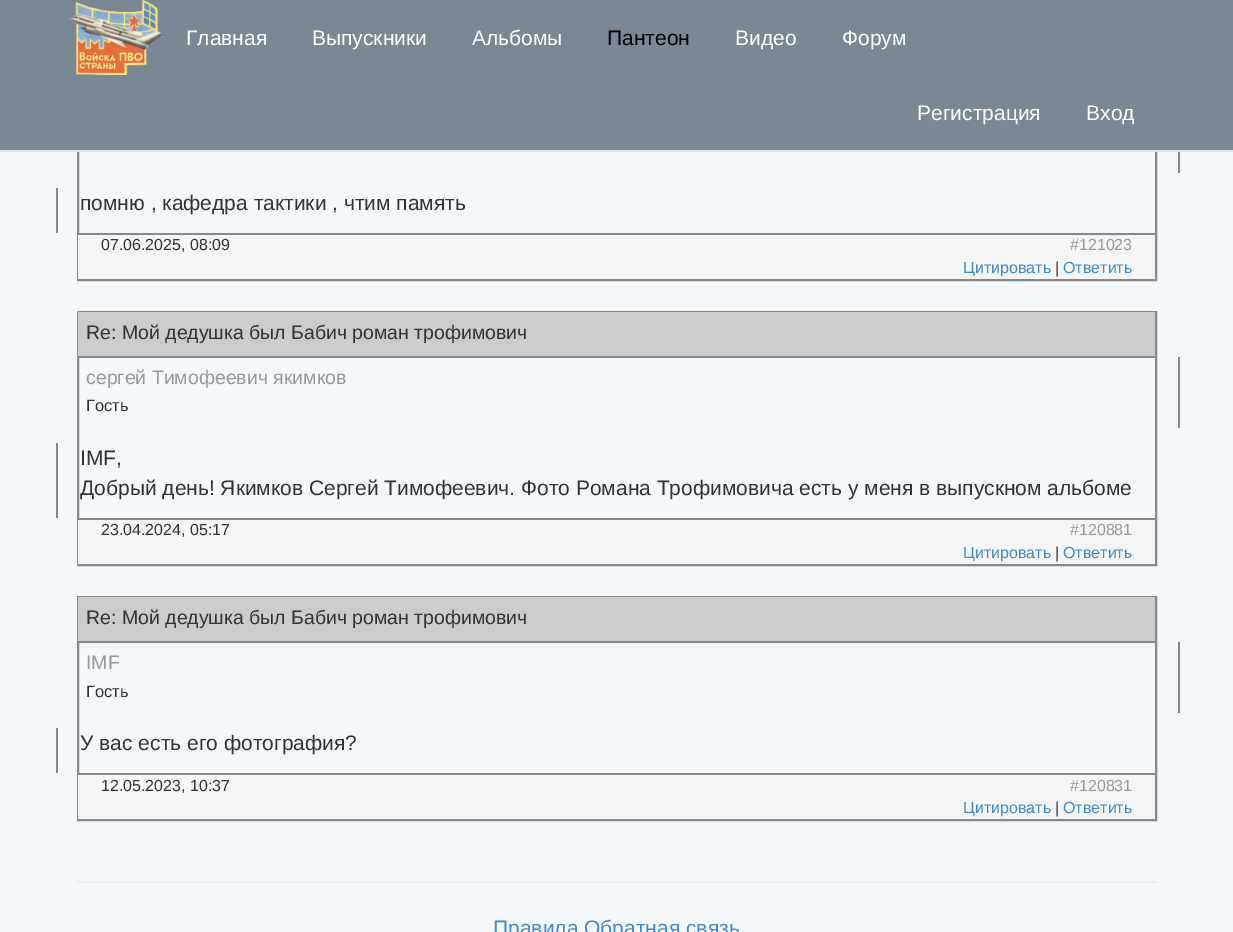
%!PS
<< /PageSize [1233 932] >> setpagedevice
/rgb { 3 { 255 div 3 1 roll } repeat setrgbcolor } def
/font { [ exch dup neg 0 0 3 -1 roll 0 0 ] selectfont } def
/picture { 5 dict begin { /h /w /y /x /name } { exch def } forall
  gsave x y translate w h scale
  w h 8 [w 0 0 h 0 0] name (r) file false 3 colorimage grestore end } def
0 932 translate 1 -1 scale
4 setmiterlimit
245 248 250 rgb
0 0 1233 932 rectfill
136 136 136 rgb
2 setlinewidth
78 57 1078 223 rectstroke
122 136 147 rgb
0 0 1233 150 rectfill
231 231 231 rgb
0 150 1233 2 rectfill
(img/1.rgb) 69 0 94 75 picture
[
  [1178 152 2 21 136 136 136]
  [56 188 2 45 136 136 136]
  [78 235 1077 44 245 245 245]
  [78 233 1077 2 136 136 136]
] { aload pop rgb rectfill } forall
78 312 1078 253 rectstroke
[
  [78 312 1077 44 204 204 204]
  [78 356 1077 2 136 136 136]
  [1178 357 2 71 136 136 136]
  [56 443 2 75 136 136 136]
  [78 520 1077 44 245 245 245]
  [78 518 1077 2 136 136 136]
] { aload pop rgb rectfill } forall
78 597 1078 223 rectstroke
[
  [78 597 1077 44 204 204 204]
  [78 641 1077 2 136 136 136]
  [1178 642 2 71 136 136 136]
  [56 728 2 45 136 136 136]
  [78 775 1077 44 245 245 245]
  [78 773 1077 2 136 136 136]
  [77 881 1080 2 238 238 238]
] { aload pop rgb rectfill } forall
/LiberationSans-Regular 21 font
255 255 255 rgb
[
  [(Главная) 186 45]
  [(Выпускники) 312 45]
  [(Альбомы) 472 45]
] { aload pop moveto show } forall
0 0 0 rgb
607 45 moveto (Пантеон) show
255 255 255 rgb
[
  [(Видео) 735 45]
  [(Форум) 842 45]
  [(Регистрация) 917 120]
  [(Вход) 1086 120]
] { aload pop moveto show } forall
51 51 51 rgb
80 210 moveto (помню , кафедра тактики , чтим память) show
/LiberationSans-Regular 16 font
101 250 moveto (07.06.2025, 08:09) show
153 153 153 rgb
1070 250 moveto (#121023) show
66 139 202 rgb
963 273 moveto (Цитировать) show
51 51 51 rgb
1055 273 moveto (|) show
66 139 202 rgb
1063 273 moveto (Ответить) show
/LiberationSans-Regular 19.5 font
51 51 51 rgb
86 339 moveto (Re: Мой дедушка был Бабич роман трофимович) show
153 153 153 rgb
86 384 moveto (сергей Тимофеевич якимков) show
/LiberationSans-Regular 16.5 font
51 51 51 rgb
86 411 moveto (Гость) show
/LiberationSans-Regular 21 font
80 465 moveto (IMF,) show
80 495 moveto (Добрый день! Якимков Сергей Тимофеевич. Фото Романа Трофимовича есть у меня в выпускном альбоме) show
/LiberationSans-Regular 16 font
101 535 moveto (23.04.2024, 05:17) show
153 153 153 rgb
1070 535 moveto (#120881) show
66 139 202 rgb
963 558 moveto (Цитировать) show
51 51 51 rgb
1055 558 moveto (|) show
66 139 202 rgb
1063 558 moveto (Ответить) show
/LiberationSans-Regular 19.5 font
51 51 51 rgb
86 624 moveto (Re: Мой дедушка был Бабич роман трофимович) show
153 153 153 rgb
86 669 moveto (IMF) show
/LiberationSans-Regular 16.5 font
51 51 51 rgb
86 697 moveto (Гость) show
/LiberationSans-Regular 21 font
80 750 moveto (У вас есть его фотография?) show
/LiberationSans-Regular 16 font
101 791 moveto (12.05.2023, 10:37) show
153 153 153 rgb
1070 791 moveto (#120831) show
66 139 202 rgb
963 813 moveto (Цитировать) show
51 51 51 rgb
1055 813 moveto (|) show
66 139 202 rgb
1063 813 moveto (Ответить) show
/LiberationSans-Regular 21 font
493 935 moveto (Правила Обратная связь) show
showpage
